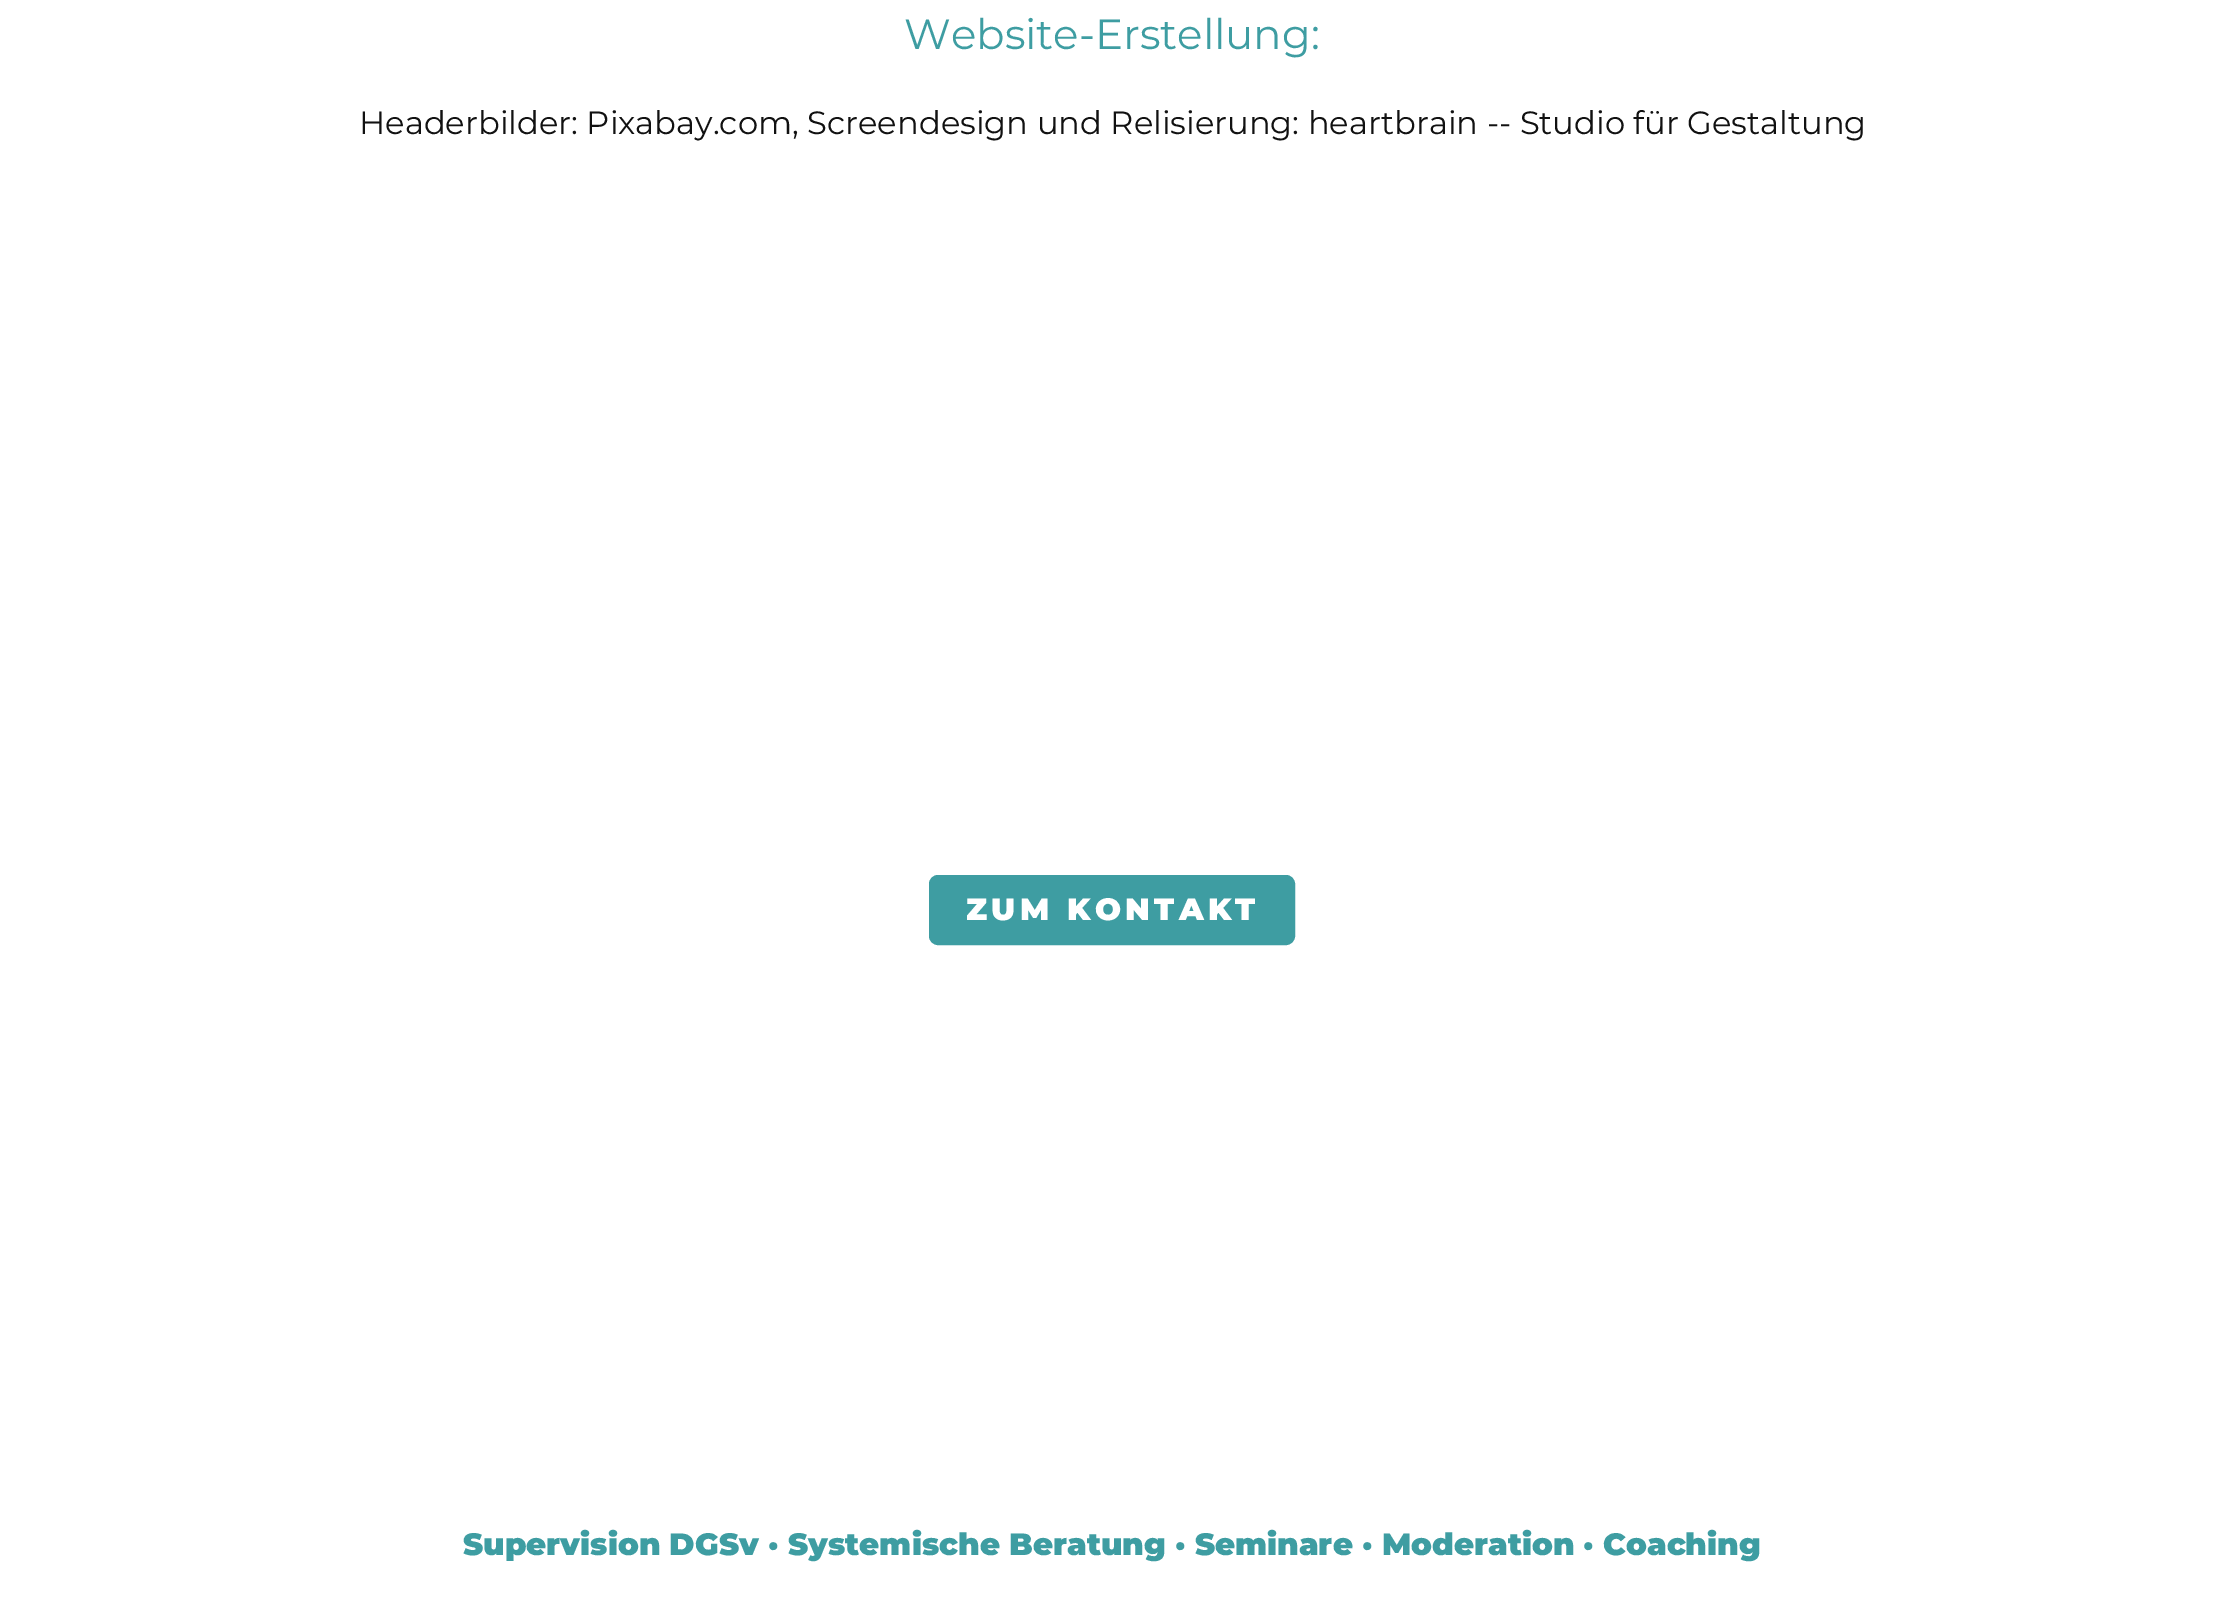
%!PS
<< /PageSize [2223 1620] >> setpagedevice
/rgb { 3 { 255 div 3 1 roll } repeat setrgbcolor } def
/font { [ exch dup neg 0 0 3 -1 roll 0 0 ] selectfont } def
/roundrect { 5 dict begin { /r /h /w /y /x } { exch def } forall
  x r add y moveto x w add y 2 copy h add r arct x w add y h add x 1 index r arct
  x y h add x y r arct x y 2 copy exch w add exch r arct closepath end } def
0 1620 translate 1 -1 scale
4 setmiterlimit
255 255 255 rgb
0 0 2223 1620 rectfill
62 157 162 rgb
930 876 364 68 8 roundrect gsave fill grestore
2 setlinewidth
stroke
/Montserrat-Regular 42 font
904 49 moveto (Website-Erstellung:) show
/Montserrat-Regular 32.2 font
17 17 17 rgb
359 134 moveto (Headerbilder: Pixabay.com, Screendesign und Relisierung: heartbrain -- Studio für Gestaltung) show
/Montserrat-Black 30.8 font
255 255 255 rgb
966 920 moveto 4.25 0 (ZUM KONTAKT) ashow
62 157 162 rgb
463 1555 moveto (Supervision DGSv · Systemische Beratung · Seminare · Moderation · Coaching) show
showpage
